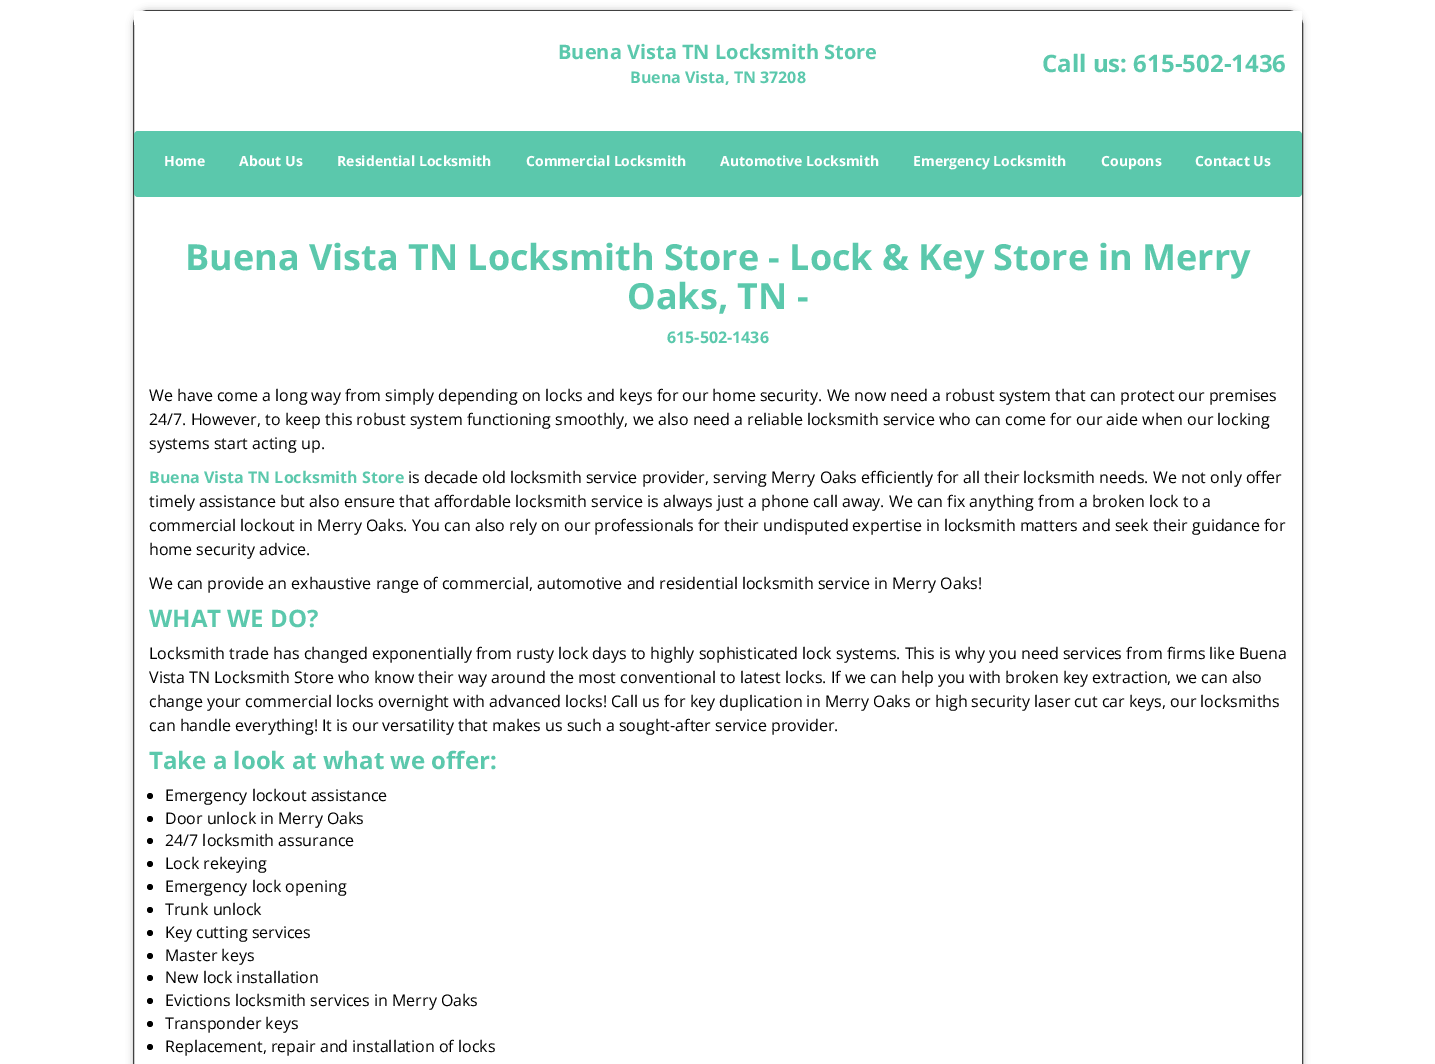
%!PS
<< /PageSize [1435 1064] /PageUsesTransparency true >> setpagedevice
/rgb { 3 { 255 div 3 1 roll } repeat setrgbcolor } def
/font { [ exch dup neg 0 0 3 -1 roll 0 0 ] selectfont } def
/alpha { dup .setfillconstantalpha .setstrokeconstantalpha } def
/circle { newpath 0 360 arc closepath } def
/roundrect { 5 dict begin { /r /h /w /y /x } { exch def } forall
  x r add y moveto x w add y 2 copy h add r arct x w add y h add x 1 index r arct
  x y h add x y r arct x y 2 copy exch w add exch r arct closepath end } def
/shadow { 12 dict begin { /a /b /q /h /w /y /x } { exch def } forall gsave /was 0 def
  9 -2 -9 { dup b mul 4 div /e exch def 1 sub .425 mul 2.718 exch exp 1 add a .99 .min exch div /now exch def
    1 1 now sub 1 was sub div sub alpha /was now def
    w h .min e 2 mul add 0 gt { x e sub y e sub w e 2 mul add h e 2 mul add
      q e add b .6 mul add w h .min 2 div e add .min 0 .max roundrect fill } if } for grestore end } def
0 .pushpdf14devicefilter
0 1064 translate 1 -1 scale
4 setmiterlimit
255 255 255 rgb
0 0 1435 1064 rectfill
gsave
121 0 moveto 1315 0 lineto 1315 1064 lineto 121 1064 lineto closepath 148 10 moveto 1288 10 lineto 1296.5 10 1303 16.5 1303 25 curveto 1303 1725 lineto 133 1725 lineto 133 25 lineto 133 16.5 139.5 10 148 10 curveto closepath eoclip newpath
191 191 191 rgb
133 10 1170 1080 15 3.5 1 shadow
grestore
65 65 65 rgb
148 10.5 moveto 1288 10.5 lineto 1296 10.5 1302.5 17 1302.5 25 curveto 1302.5 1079.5 lineto 133.5 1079.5 lineto 133.5 25 lineto 133.5 17 140 10.5 148 10.5 curveto closepath stroke
255 255 255 rgb
134 11 1168 14 rectfill
91 200 172 rgb
134 131 1168 66 4 roundrect fill
0 0 0 rgb
150 796 3 circle fill
150 819 3 circle fill
150 841 3 circle fill
150 864 3 circle fill
150 887 3 circle fill
150 910 3 circle fill
150 933 3 circle fill
150 956 3 circle fill
150 978 3 circle fill
150 1001 3 circle fill
150 1024 3 circle fill
150 1047 3 circle fill
/OpenSans-Bold 20 font
91 200 172 rgb
558 59 moveto (Buena Vista TN Locksmith Store) show
/OpenSans-Bold 16 font
630 83 moveto (Buena Vista, TN 37208) show
/OpenSans-Bold 24 font
1042 72 moveto (Call us: 615-502-1436) show
/OpenSans-Bold 14 font
255 255 255 rgb
[
  [(Home) 164 166]
  [(About Us) 239 166]
  [(Residential Locksmith) 337 166]
  [(Commercial Locksmith) 526 166]
  [(Automotive Locksmith) 720 166]
  [(Emergency Locksmith) 913 166]
  [(Coupons) 1101 166]
  [(Contact Us) 1195 166]
] { aload pop moveto show } forall
/OpenSans-Bold 36 font
91 200 172 rgb
185 270 moveto (Buena Vista TN Locksmith Store - Lock & Key Store in Merry) show
627 309 moveto (Oaks, TN -) show
/OpenSans-Bold 16 font
667 343 moveto (615-502-1436) show
/OpenSans-Regular 16 font
0 0 0 rgb
[
  [(We have come a long way from simply depending on locks and keys for our home security. We now need a robust system that can protect our premises) 149 401]
  [(24/7. However, to keep this robust system functioning smoothly, we also need a reliable locksmith service who can come for our aide when our locking) 149 425]
  [(systems start acting up.) 149 449]
] { aload pop moveto show } forall
/OpenSans-Bold 16 font
91 200 172 rgb
149 483 moveto (Buena Vista TN Locksmith Store) show
/OpenSans-Regular 16 font
0 0 0 rgb
[
  [(is decade old locksmith service provider, serving Merry Oaks efficiently for all their locksmith needs. We not only offer) 408 483]
  [(timely assistance but also ensure that affordable locksmith service is always just a phone call away. We can fix anything from a broken lock to a) 149 507]
  [(commercial lockout in Merry Oaks. You can also rely on our professionals for their undisputed expertise in locksmith matters and seek their guidance for) 149 531]
  [(home security advice.) 149 555]
  [(We can provide an exhaustive range of commercial, automotive and residential locksmith service in Merry Oaks!) 149 589]
] { aload pop moveto show } forall
/OpenSans-Bold 24 font
91 200 172 rgb
149 627 moveto (WHAT WE DO?) show
/OpenSans-Regular 16 font
0 0 0 rgb
[
  [(Locksmith trade has changed exponentially from rusty lock days to highly sophisticated lock systems. This is why you need services from firms like Buena) 149 659]
  [(Vista TN Locksmith Store who know their way around the most conventional to latest locks. If we can help you with broken key extraction, we can also) 149 683]
  [(change your commercial locks overnight with advanced locks! Call us for key duplication in Merry Oaks or high security laser cut car keys, our locksmiths) 149 707]
  [(can handle everything! It is our versatility that makes us such a sought-after service provider.) 149 731]
] { aload pop moveto show } forall
/OpenSans-Bold 24 font
91 200 172 rgb
149 769 moveto (Take a look at what we offer:) show
/OpenSans-Regular 16 font
0 0 0 rgb
[
  [(Emergency lockout assistance) 165 801]
  [(Door unlock in Merry Oaks) 165 824]
  [(24/7 locksmith assurance) 165 846]
  [(Lock rekeying) 165 869]
  [(Emergency lock opening) 165 892]
  [(Trunk unlock) 165 915]
  [(Key cutting services) 165 938]
  [(Master keys) 165 961]
  [(New lock installation) 165 983]
  [(Evictions locksmith services in Merry Oaks) 165 1006]
  [(Transponder keys) 165 1029]
  [(Replacement, repair and installation of locks) 165 1052]
] { aload pop moveto show } forall
.poppdf14devicefilter showpage
